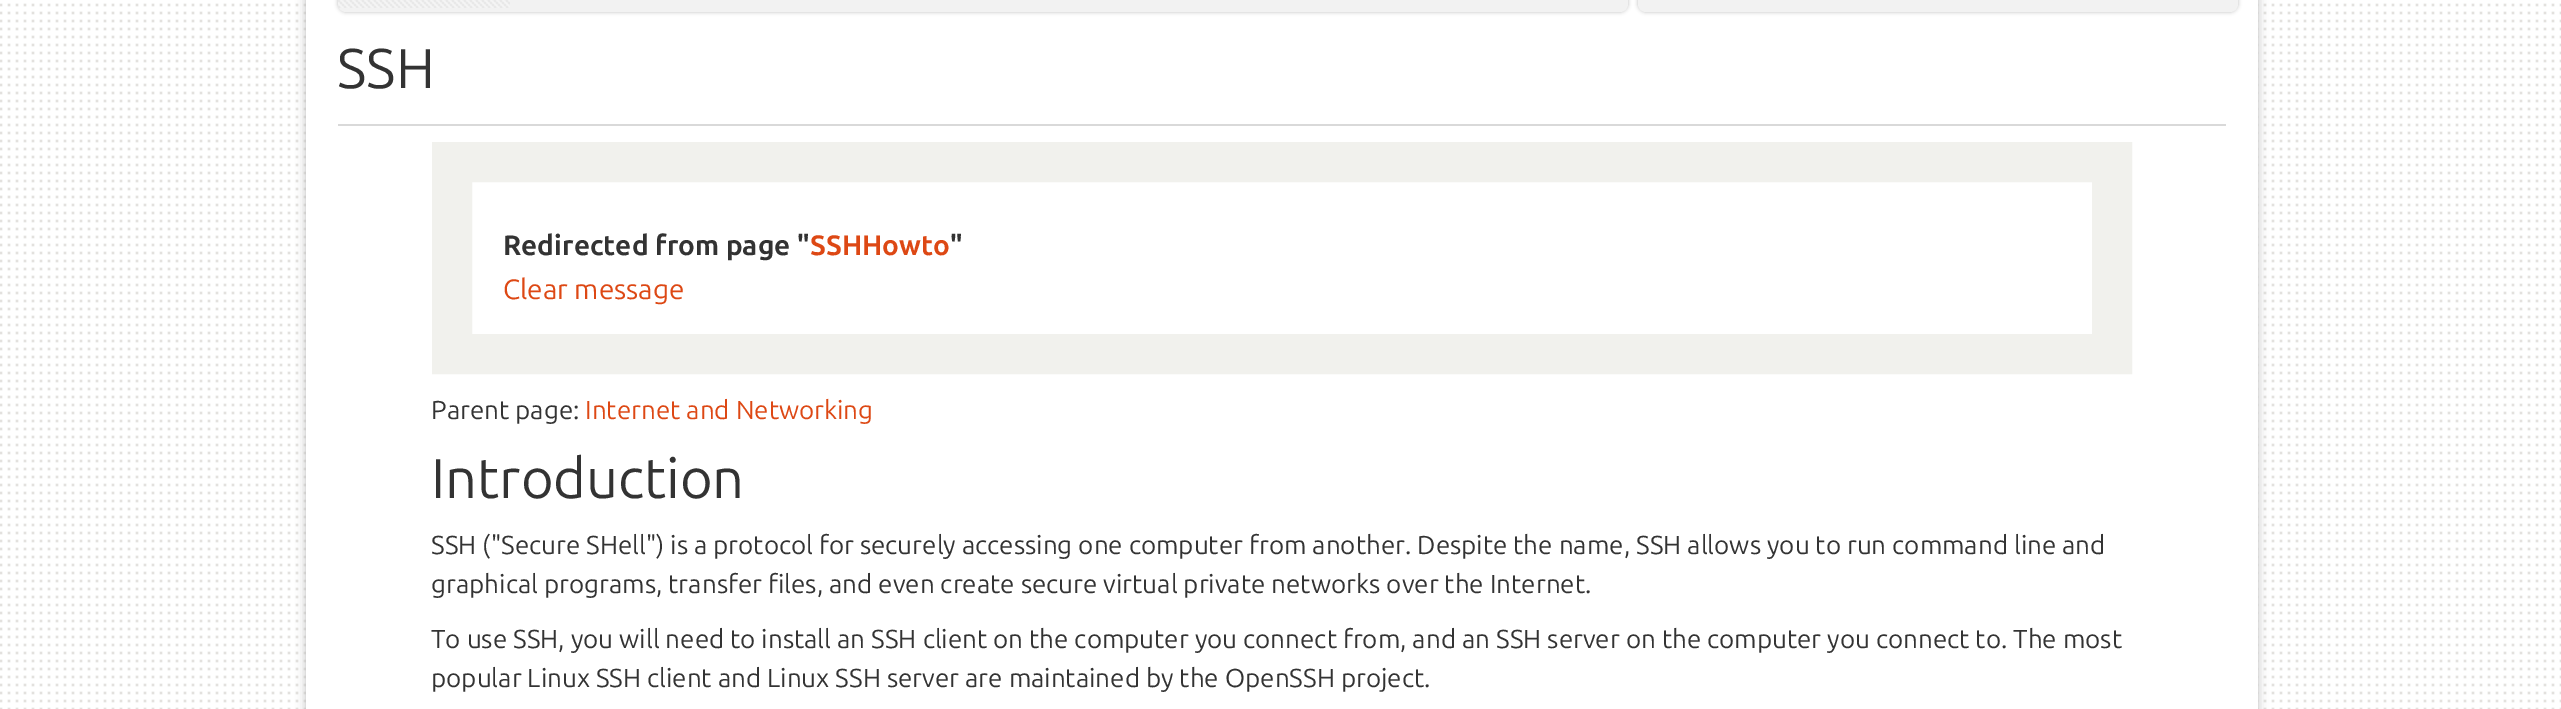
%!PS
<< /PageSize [2561 709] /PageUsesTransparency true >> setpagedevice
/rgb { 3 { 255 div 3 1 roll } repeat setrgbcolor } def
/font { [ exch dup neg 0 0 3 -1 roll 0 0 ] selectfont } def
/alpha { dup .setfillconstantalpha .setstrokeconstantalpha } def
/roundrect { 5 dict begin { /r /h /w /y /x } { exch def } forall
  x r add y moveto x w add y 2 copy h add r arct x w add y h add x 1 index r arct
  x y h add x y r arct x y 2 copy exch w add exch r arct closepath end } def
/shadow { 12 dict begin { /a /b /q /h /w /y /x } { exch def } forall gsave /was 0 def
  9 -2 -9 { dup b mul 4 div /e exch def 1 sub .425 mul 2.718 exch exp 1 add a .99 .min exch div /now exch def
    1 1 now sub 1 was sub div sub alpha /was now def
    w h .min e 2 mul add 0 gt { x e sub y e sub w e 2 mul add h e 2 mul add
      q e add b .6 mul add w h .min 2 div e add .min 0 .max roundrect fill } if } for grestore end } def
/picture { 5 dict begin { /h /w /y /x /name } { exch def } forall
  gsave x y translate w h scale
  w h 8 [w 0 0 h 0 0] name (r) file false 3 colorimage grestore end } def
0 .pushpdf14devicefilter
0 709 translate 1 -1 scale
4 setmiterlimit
255 255 255 rgb
0 0 2561 709 rectfill
(img/1.rgb) 0 3 2561 706 picture
187 187 187 rgb
306 -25 1952 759 10 5 1 shadow
255 255 255 rgb
306 0 1952 709 rectfill
187 187 187 rgb
338 -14 1290 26 8 2 1 shadow
242 242 242 rgb
338 -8 moveto 1628 -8 lineto 1628 4 lineto 1628 8.5 1624.5 12 1620 12 curveto 346 12 lineto 341.5 12 338 8.5 338 4 curveto closepath fill
(img/2.rgb) 338 0 172 8 picture
187 187 187 rgb
1638 -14 600 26 8 2 1 shadow
242 242 242 rgb
1638 -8 moveto 2238 -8 lineto 2238 4 lineto 2238 8.5 2234.5 12 2230 12 curveto 1646 12 lineto 1641.5 12 1638 8.5 1638 4 curveto closepath fill
217 217 217 rgb
338 124 1888 2 rectfill
241 241 237 rgb
40 setlinewidth
452 162 1660 192 rectstroke
/Ubuntu-Regular 56 font
51 51 51 rgb
337 88 moveto (SSH) show
/Ubuntu-Bold 28 font
503 255 moveto (Redirected from page ") show
221 72 20 rgb
810 255 moveto (SSHHowto) show
51 51 51 rgb
950 255 moveto (") show
/Ubuntu-Regular 28 font
221 72 20 rgb
503 299 moveto (Clear message) show
/Ubuntu-Regular 26 font
51 51 51 rgb
431 419 moveto (Parent page:) show
221 72 20 rgb
585 419 moveto (Internet and Networking) show
/Ubuntu-Regular 56 font
51 51 51 rgb
431 498 moveto (Introduction) show
/Ubuntu-Regular 26 font
[
  [(SSH \("Secure SHell"\) is a protocol for securely accessing one computer from another. Despite the name, SSH allows you to run command line and) 431 554]
  [(graphical programs, transfer files, and even create secure virtual private networks over the Internet.) 431 593]
  [(To use SSH, you will need to install an SSH client on the computer you connect from, and an SSH server on the computer you connect to. The most) 431 648]
  [(popular Linux SSH client and Linux SSH server are maintained by the OpenSSH project.) 431 687]
] { aload pop moveto show } forall
.poppdf14devicefilter showpage
